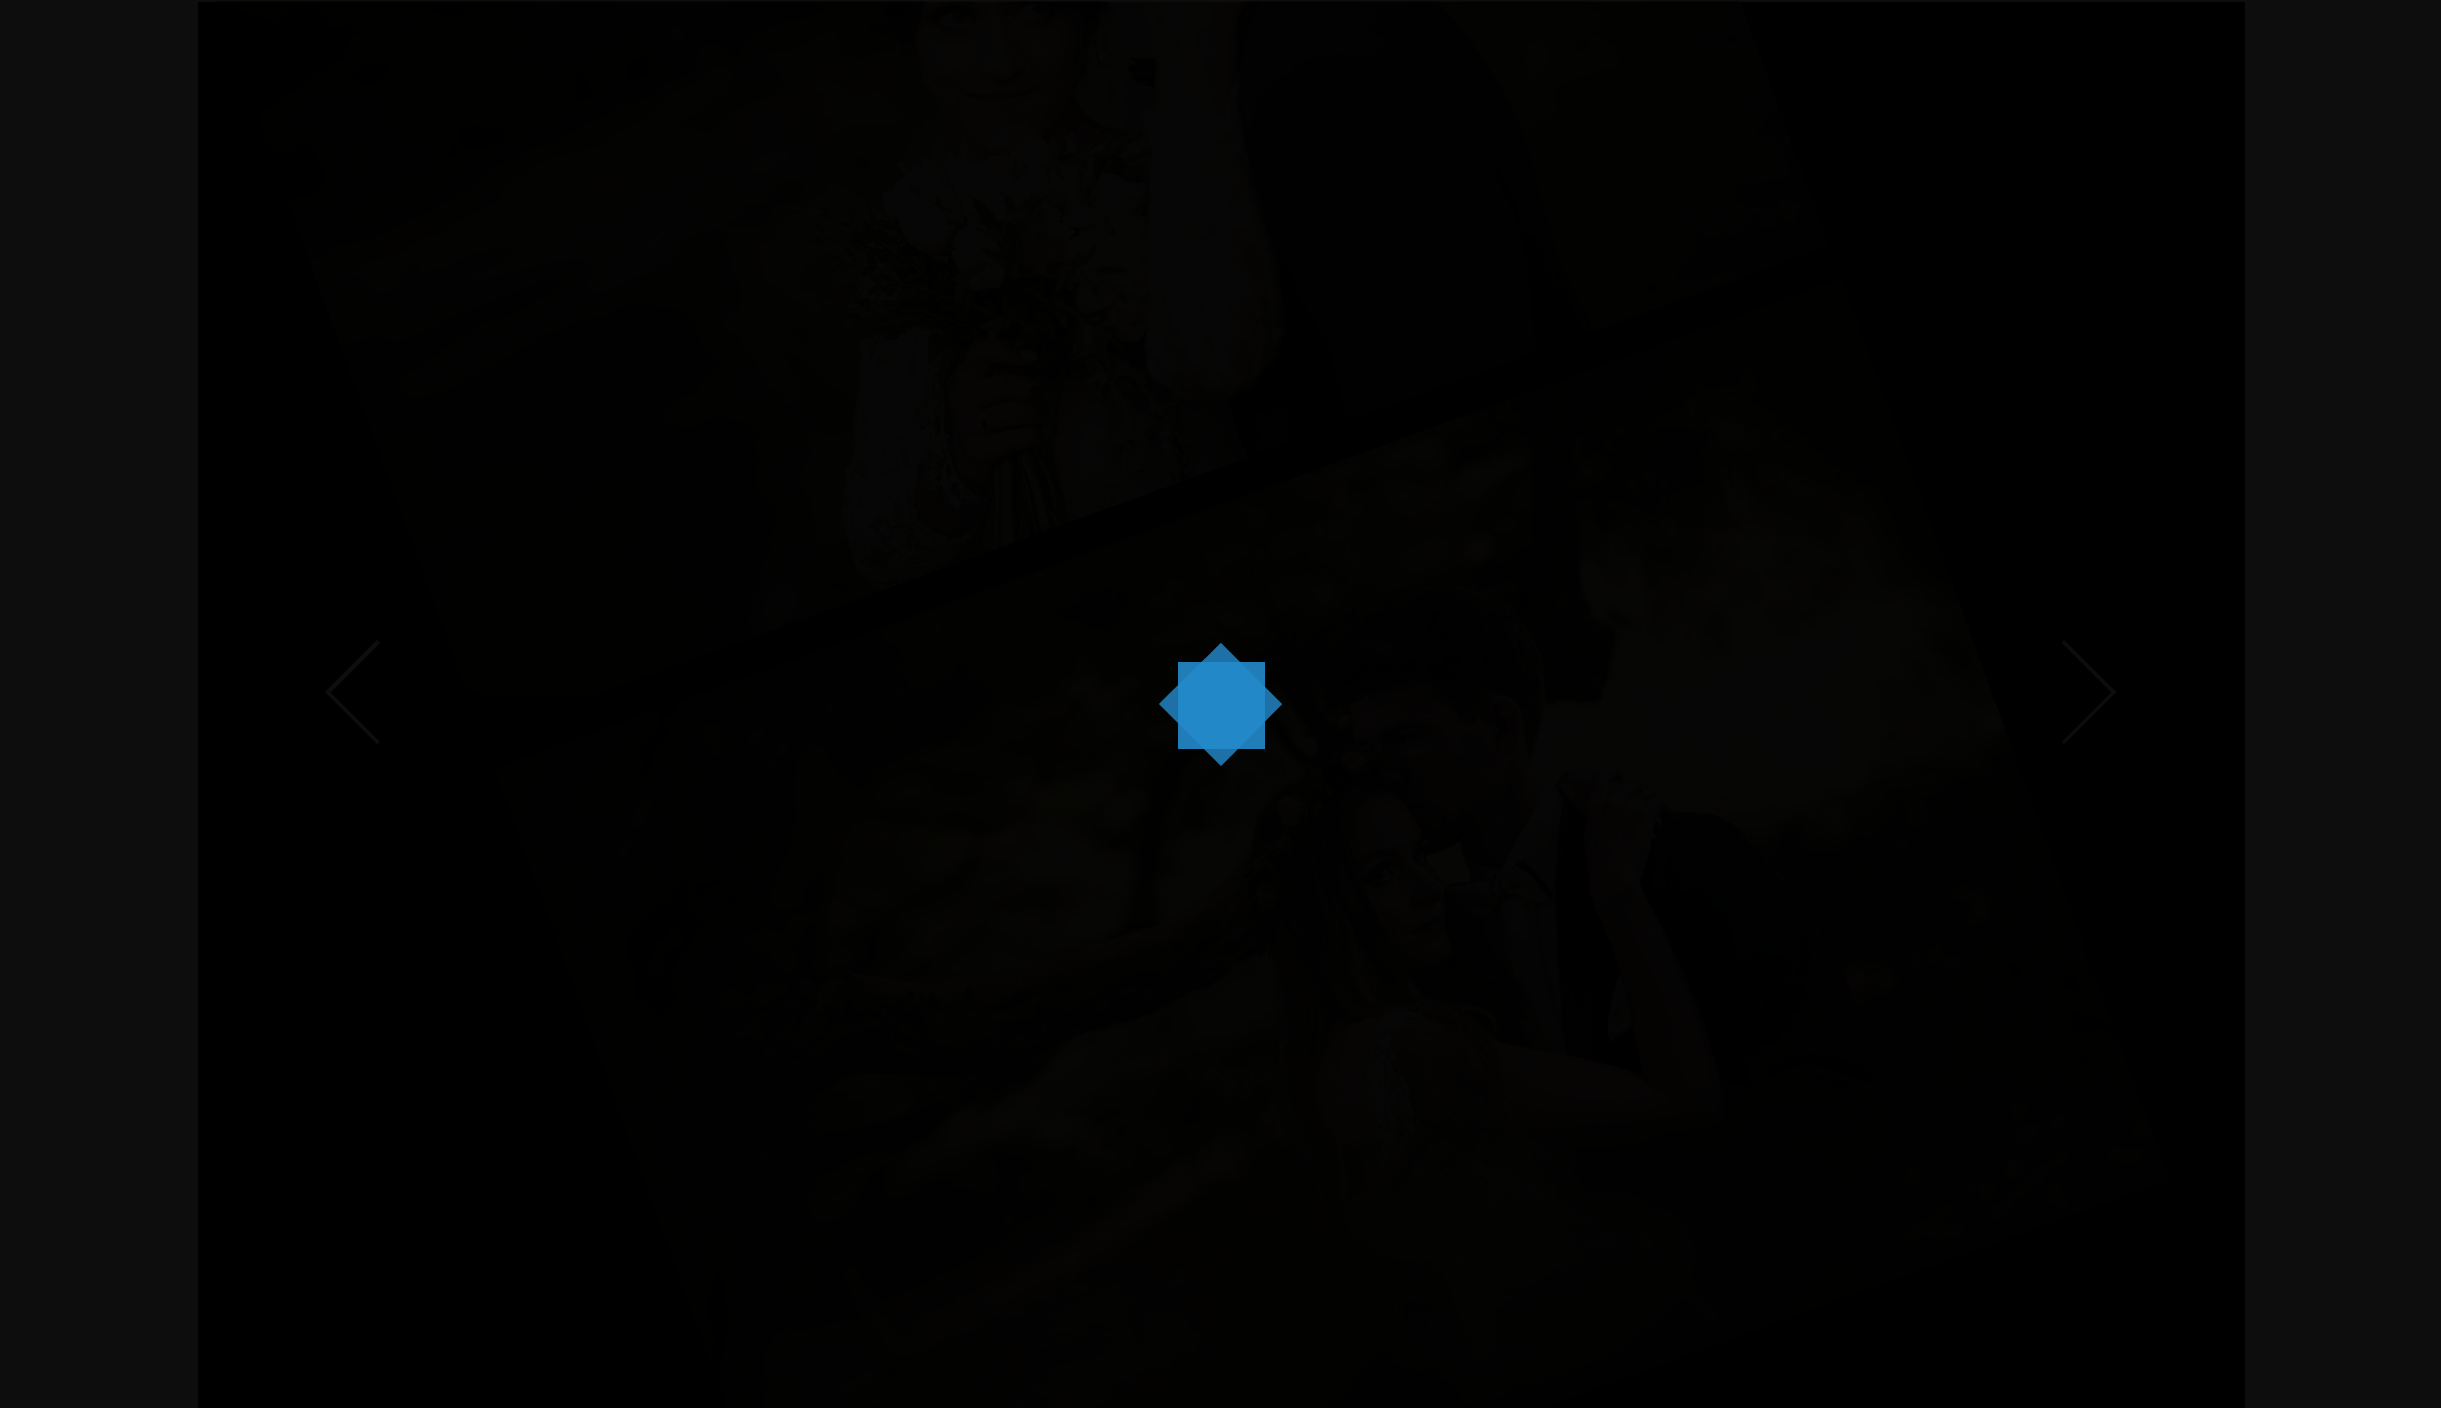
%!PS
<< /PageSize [2441 1408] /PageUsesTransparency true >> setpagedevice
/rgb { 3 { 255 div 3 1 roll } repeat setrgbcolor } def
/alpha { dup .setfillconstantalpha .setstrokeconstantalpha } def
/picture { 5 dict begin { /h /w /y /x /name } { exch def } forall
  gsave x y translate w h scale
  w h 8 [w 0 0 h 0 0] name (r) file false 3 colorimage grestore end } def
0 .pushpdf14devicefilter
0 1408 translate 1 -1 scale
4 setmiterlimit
13 13 13 rgb
0 0 2441 1408 rectfill
1 0 0 rgb
198 2 2047 1406 rectfill
(img/1.rgb) 215 1 1614 696 picture
(img/2.rgb) 495 279 1674 1129 picture
13 13 13 rgb
325 692 moveto 377 640 lineto 380 643 lineto 328 695 lineto closepath fill
325 692 moveto 328 690 lineto 380 742 lineto 377 744 lineto closepath fill
2062 643 moveto 2064 640 lineto 2116 692 lineto 2114 695 lineto closepath fill
2062 742 moveto 2114 690 lineto 2116 692 lineto 2064 744 lineto closepath fill
0.9 alpha
36 138 204 rgb
1178 662 87 87 rectfill
0.81 alpha
1221 643 moveto 1282 704 lineto 1221 766 lineto 1159 704 lineto closepath fill
.poppdf14devicefilter showpage
